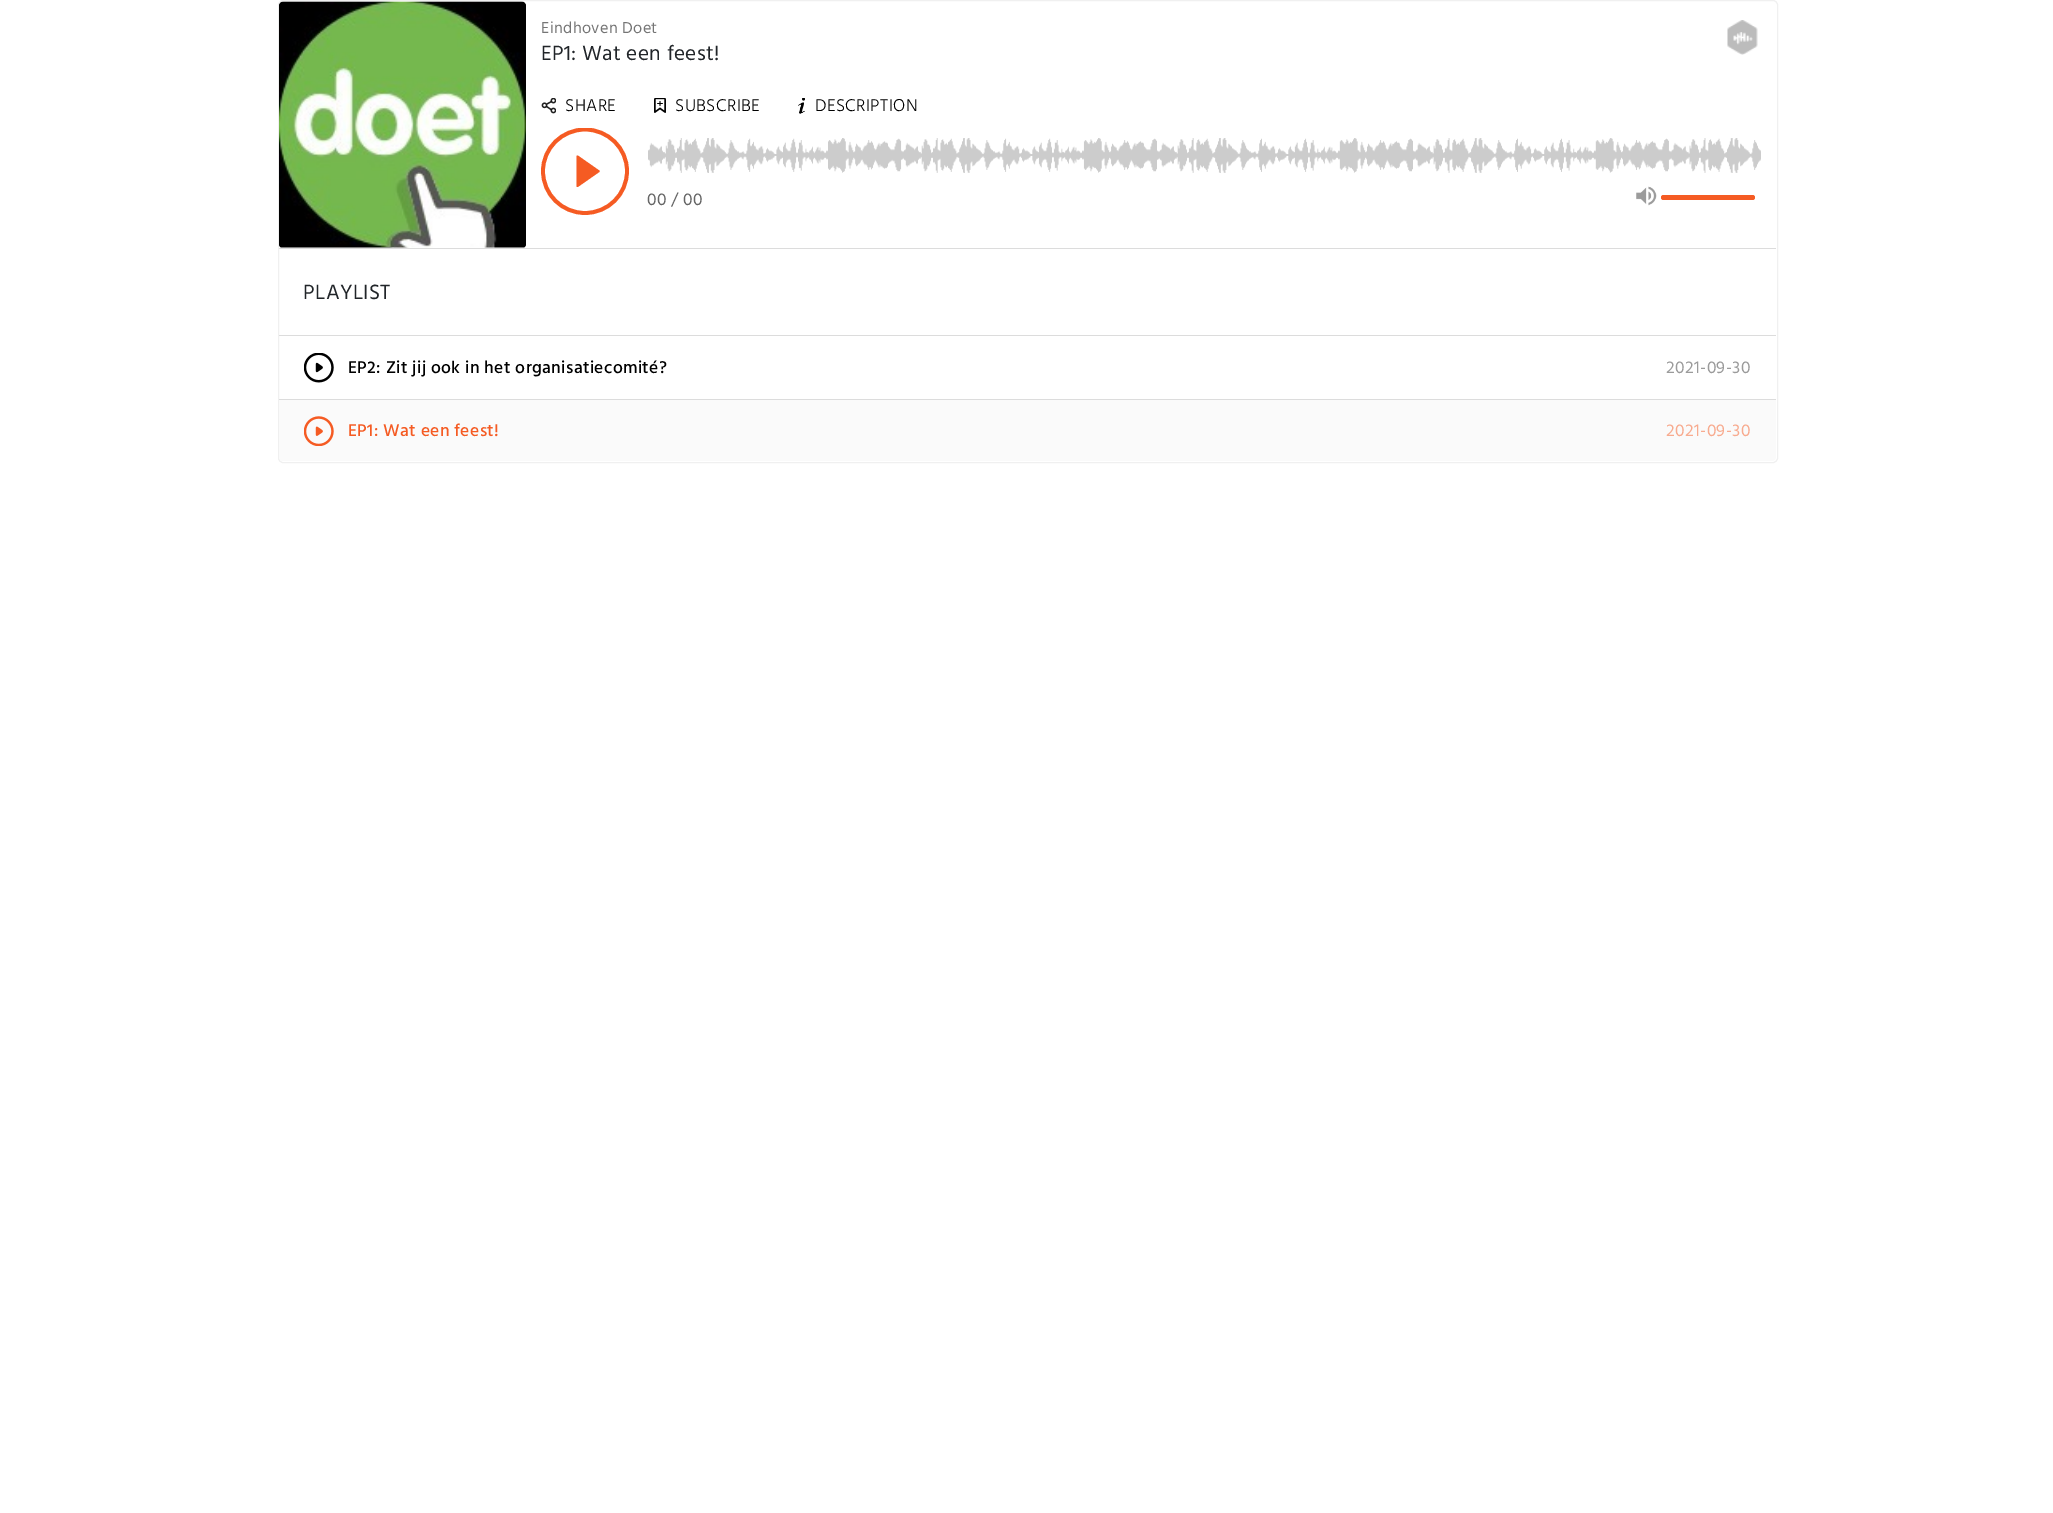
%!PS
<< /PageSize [2053 1513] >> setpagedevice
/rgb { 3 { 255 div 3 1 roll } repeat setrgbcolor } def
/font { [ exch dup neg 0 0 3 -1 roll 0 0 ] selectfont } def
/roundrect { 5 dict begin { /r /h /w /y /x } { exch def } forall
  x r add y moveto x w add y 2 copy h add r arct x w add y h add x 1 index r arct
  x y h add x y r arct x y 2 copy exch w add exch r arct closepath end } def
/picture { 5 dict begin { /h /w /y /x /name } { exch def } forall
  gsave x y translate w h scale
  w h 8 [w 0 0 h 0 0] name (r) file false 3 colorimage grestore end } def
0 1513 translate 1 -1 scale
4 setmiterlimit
255 255 255 rgb
0 0 2053 1513 rectfill
240 240 240 rgb
278.5 0.5 1499 462 4.5 roundrect stroke
220 220 220 rgb
279 248 1497 1 rectfill
(img/1.rgb) 279 1 247 247 picture
(img/2.rgb) 1727 20 31 35 picture
(img/3.rgb) 541 98 15 16 picture
(img/4.rgb) 654 98 12 15 picture
(img/5.rgb) 798 98 7 16 picture
gsave
541 128 88 87 rectclip
245 91 35 rgb
3.8 setlinewidth
543 171 moveto 543 148 562 129.5 585 129.5 curveto 608 129.5 627 148 627 171 curveto 627 194.5 608 213 585 213 curveto 562 213 543 194.5 543 171 curveto closepath stroke
grestore
245 91 35 rgb
576.5 185.5 moveto 576.5 187 577 187.5 578.5 186.5 curveto 598.5 172.5 lineto 600 172 600 170.5 598.5 170 curveto 578.5 156 lineto 577 155 576.5 155.5 576.5 157 curveto closepath eofill
204 204 204 rgb
648 138 1113 35 rectfill
(img/6.rgb) 648 138 1113 35 picture
(img/7.rgb) 1636 186 21 20 picture
245 91 35 rgb
1661 195 94 5 2.5 roundrect fill
220 220 220 rgb
279 335 1497 1 rectfill
(img/8.rgb) 304 353 30 30 picture
250 250 250 rgb
279 399 moveto 1776 399 lineto 1776 457 lineto 1776 459 1774 461 1772 461 curveto 283 461 lineto 281 461 279 459 279 457 curveto closepath fill
220 220 220 rgb
279 399 1497 1 rectfill
(img/9.rgb) 304 416 30 30 picture
/HindSiliguri-Regular 16.25 font
117 117 117 rgb
541 33 moveto 0.4 0 (Eindhoven Doet) ashow
/HindSiliguri-Regular 21.25 font
33 37 41 rgb
541 60 moveto 0.4 0 (EP1: Wat een feest!) ashow
/HindSiliguri-Light 17.5 font
0 0 0 rgb
565 111 moveto 0.4 0 (SHARE) ashow
675 111 moveto 0.4 0 (SUBSCRIBE) ashow
815 111 moveto 0.4 0 (DESCRIPTION) ashow
/HindSiliguri-Regular 17.5 font
102 102 102 rgb
647 205 moveto 0.4 0 (00 / 00) ashow
/HindSiliguri-Regular 21.25 font
33 37 41 rgb
303 299 moveto 0.4 0 (PLAYLIST) ashow
/HindSiliguri-Medium 17.5 font
0 0 0 rgb
348 373 moveto 0.4 0 (EP2: Zit jij ook in het organisatiecomité?) ashow
/HindSiliguri-Regular 17.5 font
155 155 155 rgb
1666 373 moveto 0.4 0 (2021-09-30) ashow
/HindSiliguri-Medium 17.5 font
245 91 35 rgb
348 436 moveto 0.4 0 (EP1: Wat een feest!) ashow
/HindSiliguri-Regular 17.5 font
248 171 143 rgb
1666 436 moveto 0.4 0 (2021-09-30) ashow
showpage
